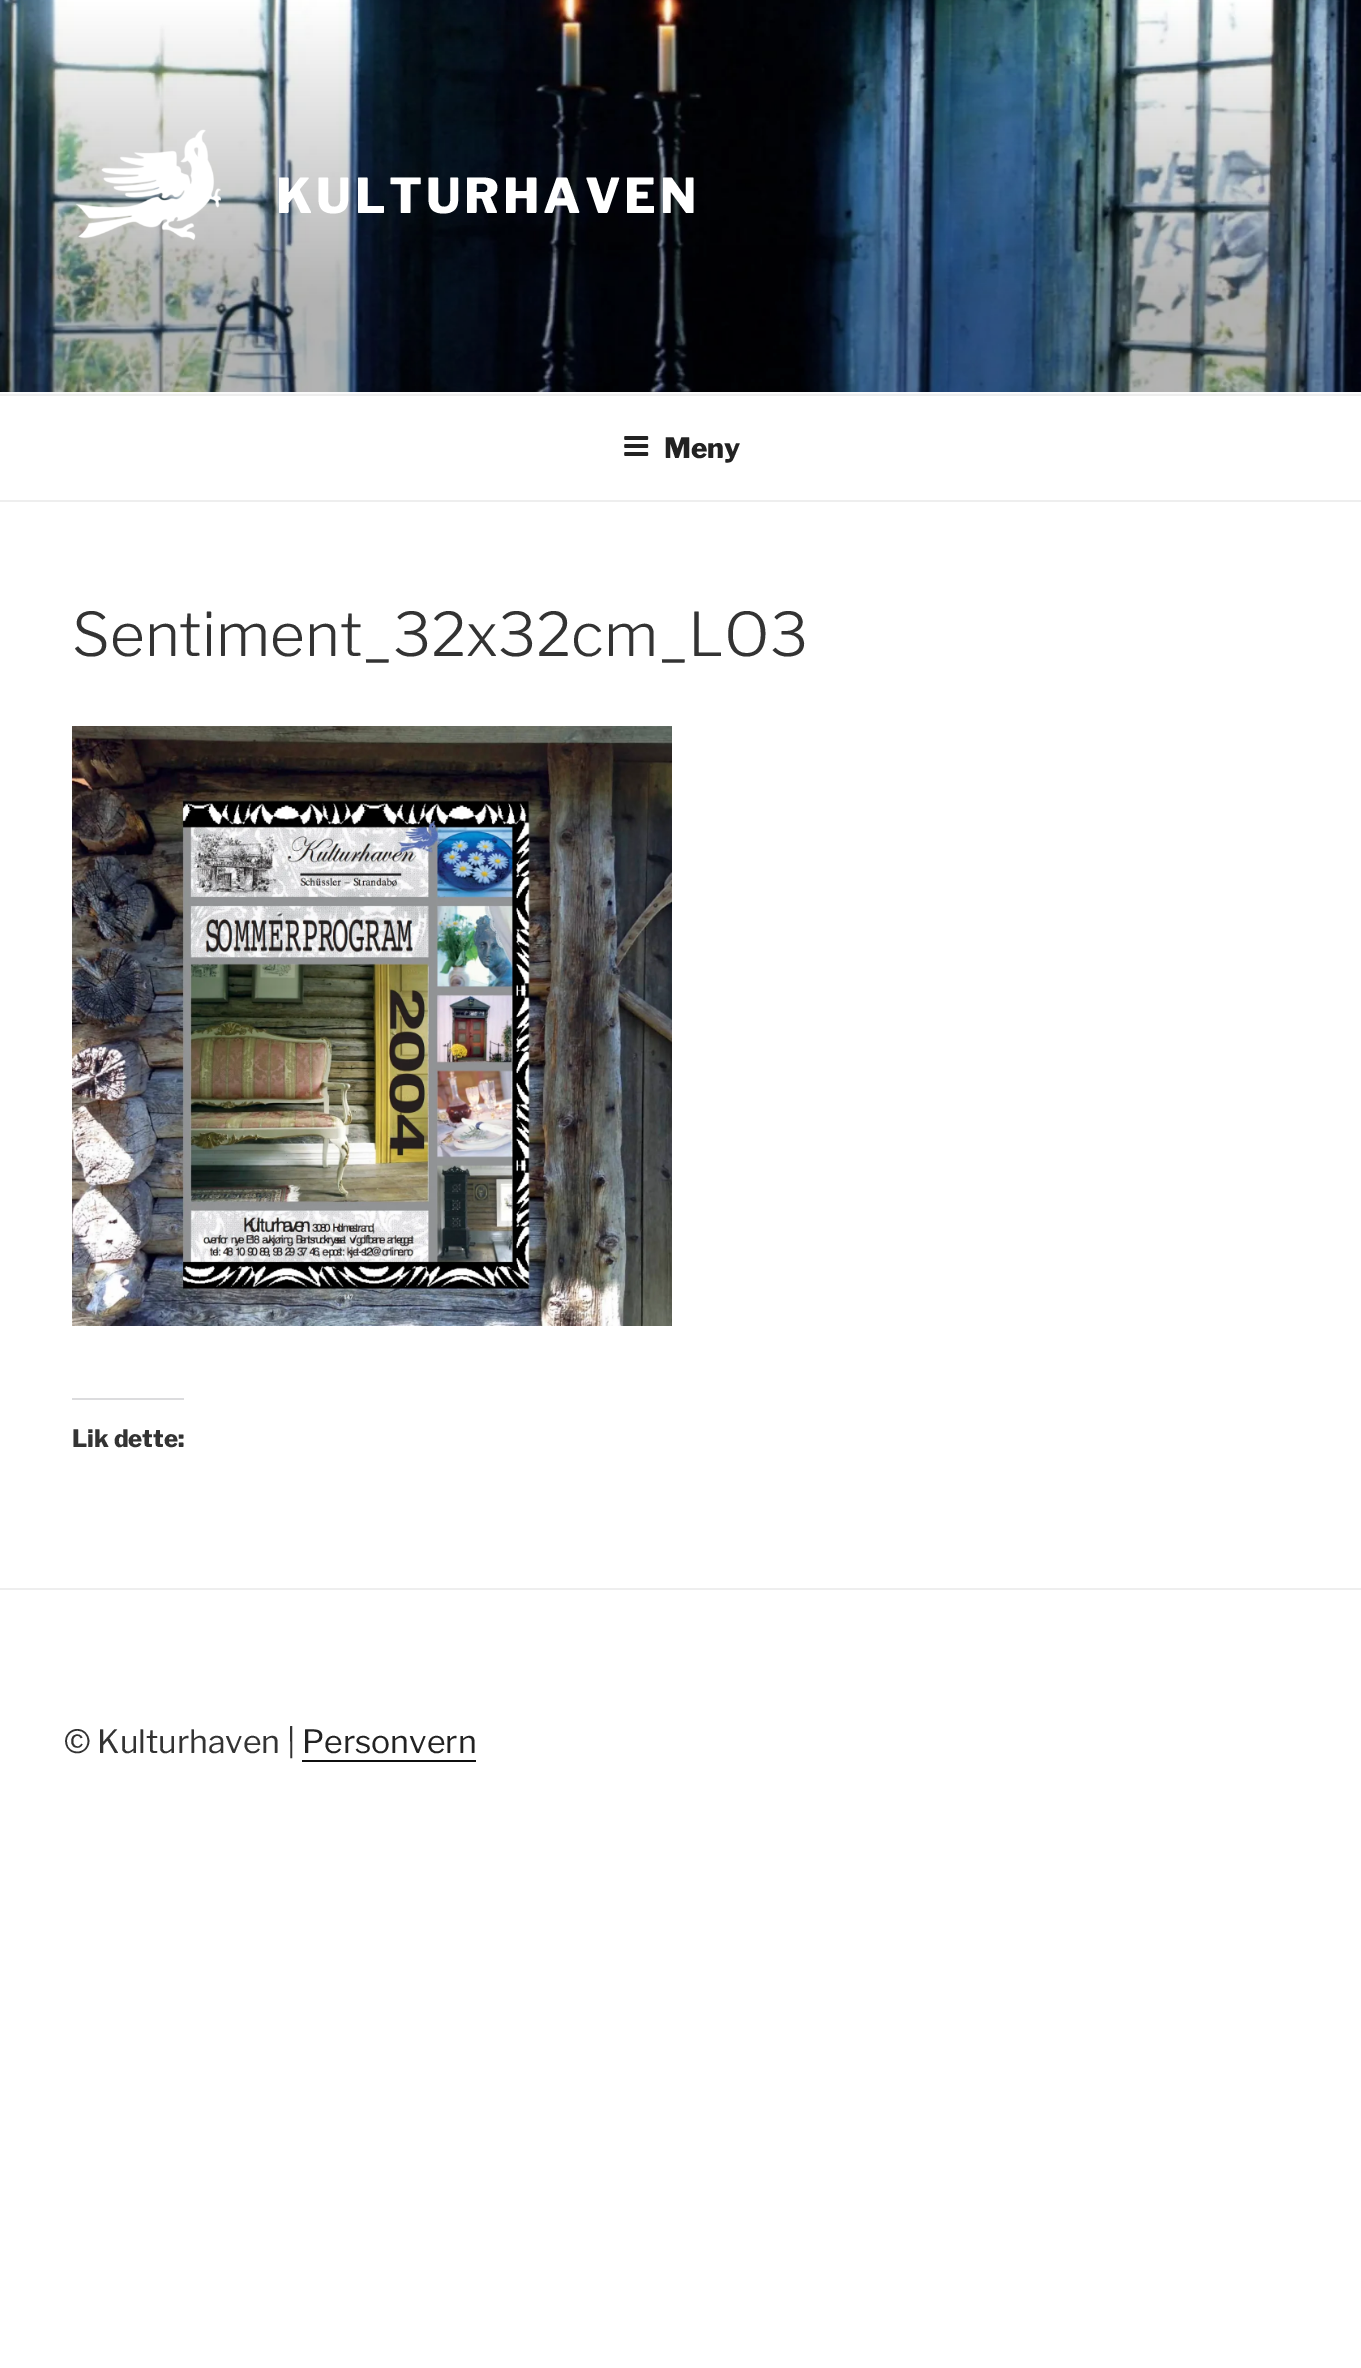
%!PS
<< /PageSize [1361 2368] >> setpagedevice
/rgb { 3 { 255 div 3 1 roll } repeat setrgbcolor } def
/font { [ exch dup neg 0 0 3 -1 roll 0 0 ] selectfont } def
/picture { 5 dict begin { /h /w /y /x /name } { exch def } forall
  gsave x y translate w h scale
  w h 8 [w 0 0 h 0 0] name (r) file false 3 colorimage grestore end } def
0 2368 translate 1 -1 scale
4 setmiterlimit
255 255 255 rgb
0 0 1361 2368 rectfill
250 250 250 rgb
0 392 1361 2 rectfill
(img/1.rgb) 0 0 1361 392 picture
(img/2.rgb) 76 129 145 111 picture
238 238 238 rgb
0 394 1361 2 rectfill
0 500 1361 2 rectfill
(img/3.rgb) 624 436 25 20 picture
(img/4.rgb) 72 726 600 600 picture
[
  [72 1398 112 2 220 220 222]
  [0 1588 1361 2 238 238 238]
  [302 1760 174 2 15 15 15]
] { aload pop rgb rectfill } forall
/LibreFranklin-Thin 48 font
255 255 255 rgb
276 213 moveto 3.75 0 (KULTURHAVEN) ashow
/LibreFranklin-Thin 28 font
34 34 34 rgb
664 458 moveto (Meny) show
/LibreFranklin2-Thin 60 font
51 51 51 rgb
72 656 moveto (Sentiment_32x32cm_LO3) show
/LibreFranklin-Thin 24 font
72 1447 moveto (Lik dette:) show
/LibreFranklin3-Thin 32 font
64 1753 moveto (© Kulturhaven |) show
34 34 34 rgb
302 1753 moveto (Personvern) show
showpage
